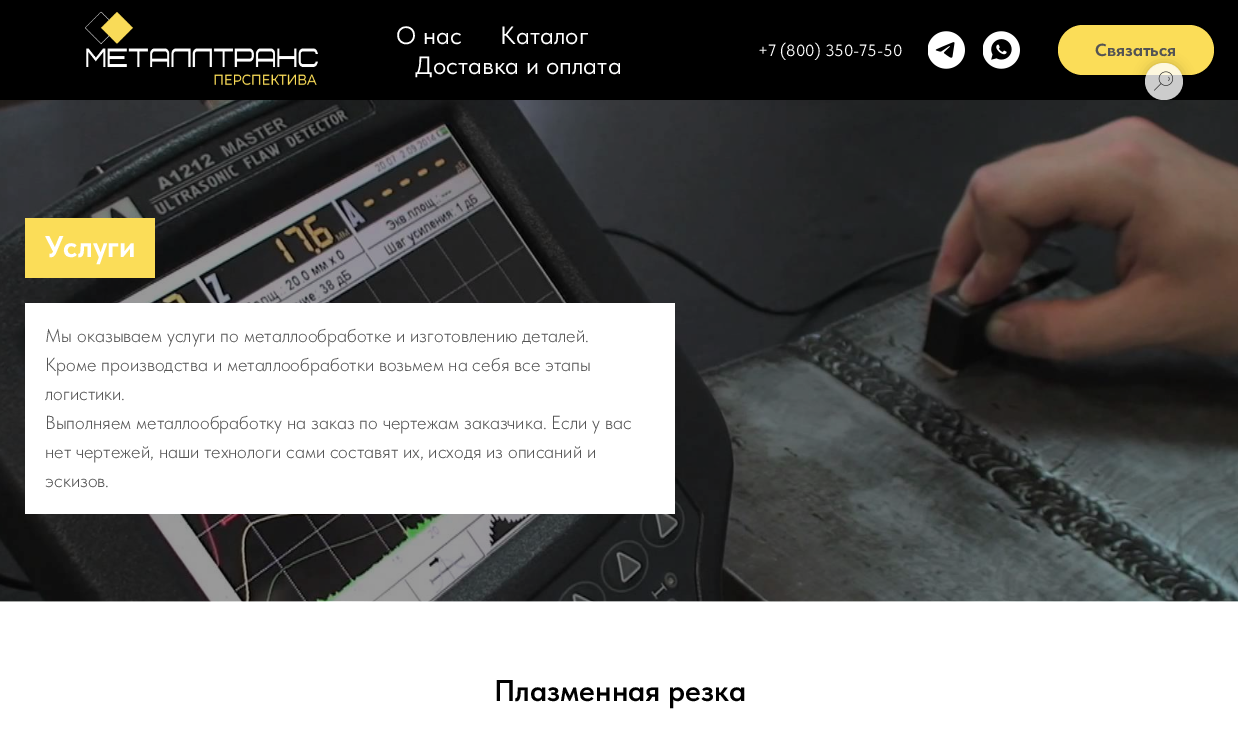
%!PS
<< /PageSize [1238 751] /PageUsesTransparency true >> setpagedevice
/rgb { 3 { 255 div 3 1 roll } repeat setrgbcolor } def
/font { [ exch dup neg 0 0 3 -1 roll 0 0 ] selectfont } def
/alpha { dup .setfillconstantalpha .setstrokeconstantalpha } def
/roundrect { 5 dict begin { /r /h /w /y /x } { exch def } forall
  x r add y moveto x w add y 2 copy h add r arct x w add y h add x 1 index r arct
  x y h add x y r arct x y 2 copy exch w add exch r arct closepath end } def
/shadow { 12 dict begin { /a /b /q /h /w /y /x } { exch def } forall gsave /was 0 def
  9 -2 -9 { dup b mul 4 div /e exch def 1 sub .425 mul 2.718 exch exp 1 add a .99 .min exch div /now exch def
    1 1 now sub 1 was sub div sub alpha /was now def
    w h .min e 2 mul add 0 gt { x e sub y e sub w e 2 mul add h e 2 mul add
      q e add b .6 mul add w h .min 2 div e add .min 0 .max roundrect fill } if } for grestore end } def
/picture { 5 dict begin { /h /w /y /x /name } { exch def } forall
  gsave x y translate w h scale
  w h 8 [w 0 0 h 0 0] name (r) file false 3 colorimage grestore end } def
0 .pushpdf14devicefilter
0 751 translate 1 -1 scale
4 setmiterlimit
255 255 255 rgb
0 0 1238 751 rectfill
0 0 0 rgb
0 0 1238 100 rectfill
(img/1.rgb) 85 11 233 75 picture
(img/2.rgb) 928 31 37 38 picture
(img/3.rgb) 983 31 37 38 picture
251 221 88 rgb
1058 25 156 50 25 roundrect fill
(img/5.rgb) 0 601 1238 1 picture
(img/6.rgb) 0 100 1238 502 picture
gsave
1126 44 moveto 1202 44 lineto 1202 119 lineto 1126 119 lineto closepath 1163.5 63 moveto 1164.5 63 lineto 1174.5 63 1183 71.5 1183 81.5 curveto 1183 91.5 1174.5 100 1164.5 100 curveto 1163.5 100 lineto 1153.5 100 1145 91.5 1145 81.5 curveto 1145 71.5 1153.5 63 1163.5 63 curveto closepath eoclip newpath
0 0 0 rgb
1145 63 38 37 18.5 6 0.2 shadow
grestore
0.8 alpha
255 255 255 rgb
1145 63 38 37 18.5 roundrect fill
1 alpha
(img/4.rgb) 1154 71 20 20 picture
251 221 88 rgb
25 218 130 60 rectfill
255 255 255 rgb
25 303 650 211 rectfill
/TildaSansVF-Regular 25 font
[
  [(О нас) 396 44]
  [(Каталог) 500 44]
  [(Доставка и оплата) 415 74]
] { aload pop moveto show } forall
/TildaSansVF-Regular 16.25 font
758 56 moveto (+7 \(800\) 350-75-50) show
/TildaSansVF-Bold 17.5 font
84 84 84 rgb
1095 56 moveto (Связаться) show
/TildaSansVF-Bold 30 font
255 255 255 rgb
45 257 moveto (Услуги) show
/TildaSansVF-Light 18.75 font
84 84 84 rgb
[
  [(Мы оказываем услуги по металлообработке и изготовлению деталей.) 45 342]
  [(Кроме производства и металлообработки возьмем на себя все этапы) 45 371]
  [(логистики.) 45 400]
  [(Выполняем металлообработку на заказ по чертежам заказчика. Если у вас) 45 429]
  [(нет чертежей, наши технологи сами составят их, исходя из описаний и) 45 458]
  [(эскизов.) 45 487]
] { aload pop moveto show } forall
/TildaSansVF-SemiBold 30 font
0 0 0 rgb
494 701 moveto (Плазменная резка) show
.poppdf14devicefilter showpage
